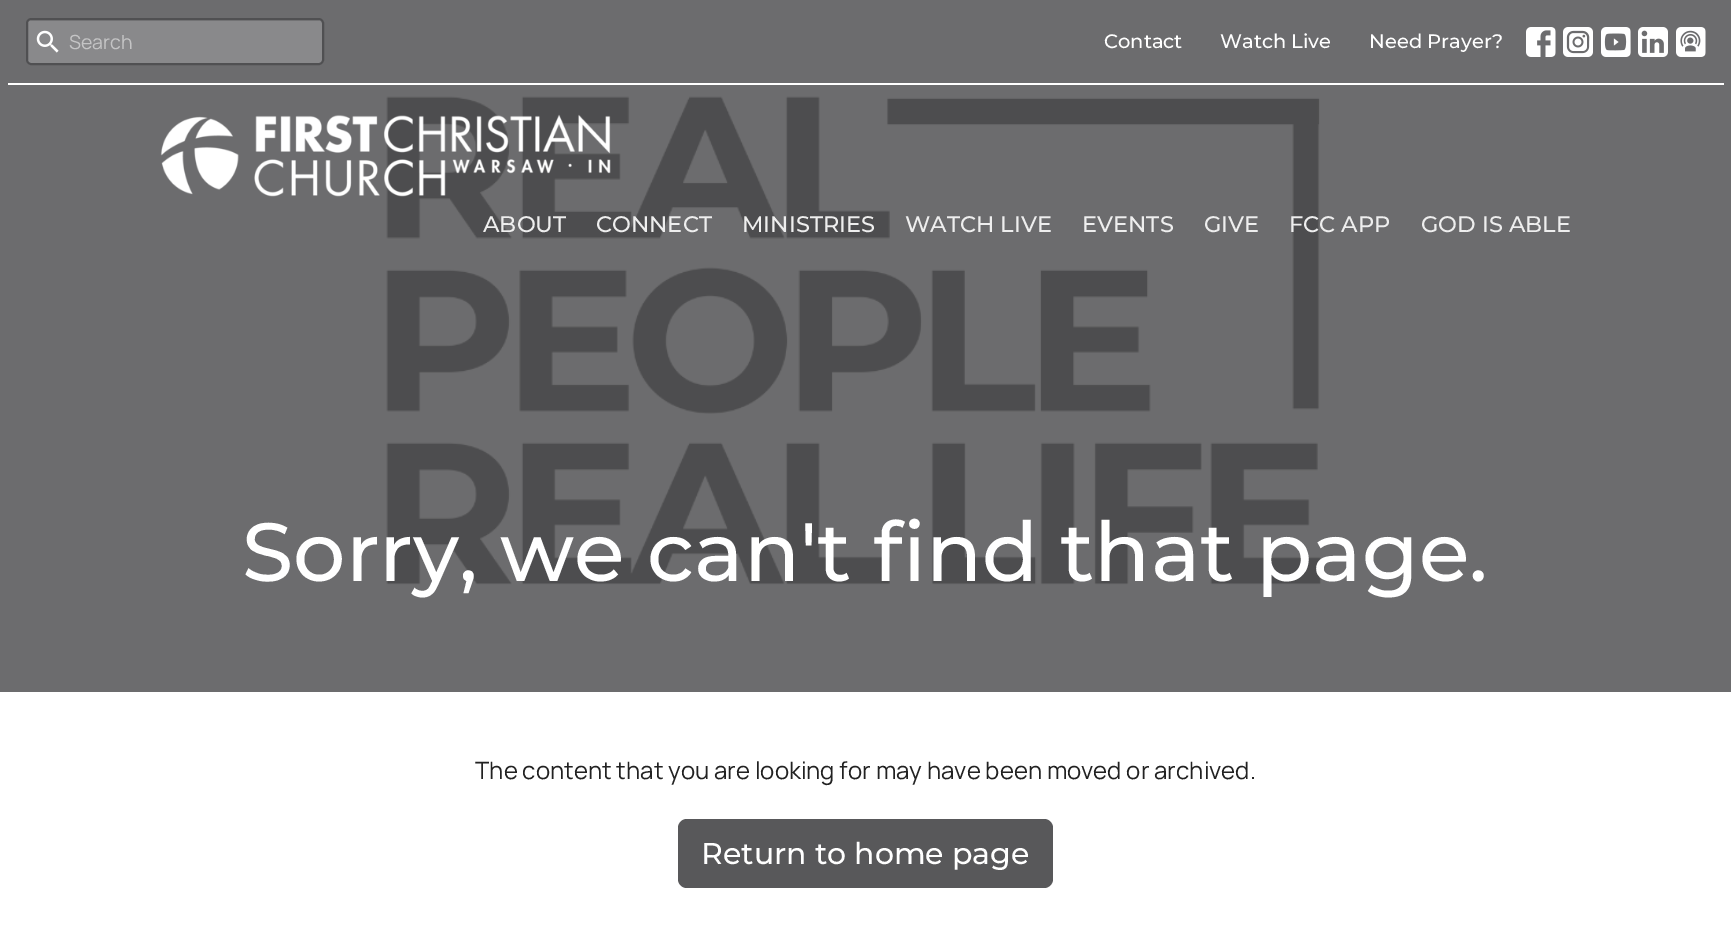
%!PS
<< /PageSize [1731 943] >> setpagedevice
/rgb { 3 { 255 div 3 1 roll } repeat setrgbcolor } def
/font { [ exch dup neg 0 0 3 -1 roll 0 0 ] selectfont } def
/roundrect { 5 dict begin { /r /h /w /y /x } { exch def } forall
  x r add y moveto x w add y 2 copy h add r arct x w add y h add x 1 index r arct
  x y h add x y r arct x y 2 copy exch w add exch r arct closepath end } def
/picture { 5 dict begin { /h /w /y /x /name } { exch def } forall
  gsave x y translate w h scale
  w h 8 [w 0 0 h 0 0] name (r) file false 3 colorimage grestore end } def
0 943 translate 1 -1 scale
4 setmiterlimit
255 255 255 rgb
0 0 1731 943 rectfill
108 108 110 rgb
0 0 1731 692 rectfill
255 255 255 rgb
8 83 1716 2 rectfill
137 137 139 rgb
26 18 298 47 5 roundrect fill
127 127 129 rgb
30 21 moveto 320 21 lineto 321 21 322 22 322 24 curveto 322 62 lineto 323 62 323 61 323 60 curveto 323 23 lineto 323 21 322 20 320 20 curveto 30 20 lineto 28 20 27 21 27 23 curveto 27 24 lineto 27 22 28 21 30 21 curveto closepath fill
80 80 82 rgb
2 setlinewidth
27 19 296 45 4 roundrect stroke
(img/1.rgb) 36 30 23 23 picture
(img/2.rgb) 1526 27 30 30 picture
(img/3.rgb) 1563 27 30 30 picture
(img/4.rgb) 1601 27 30 30 picture
(img/5.rgb) 1638 27 30 30 picture
(img/6.rgb) 1676 27 30 30 picture
(img/8.rgb) 386 96 936 489 picture
(img/7.rgb) 160 114 451 83 picture
88 88 90 rgb
678 819 375 69 9 roundrect fill
/Manrope-Regular 19.5 font
196 196 197 rgb
69 49 moveto (Search) show
/Montserrat-Medium 19.5 font
255 255 255 rgb
[
  [(Contact) 1104 48]
  [(Watch Live) 1220 48]
  [(Need Prayer?) 1369 48]
] { aload pop moveto show } forall
/Montserrat-Medium 22.5 font
238 238 238 rgb
[
  [(ABOUT) 483 232]
  [(CONNECT) 596 232]
  [(MINISTRIES) 742 232]
  [(WATCH LIVE) 905 232]
  [(EVENTS) 1082 232]
  [(GIVE) 1204 232]
  [(FCC APP) 1289 232]
  [(GOD IS ABLE) 1421 232]
] { aload pop moveto show } forall
/Montserrat-Medium 82.5 font
255 255 255 rgb
242 581 moveto (Sorry, we can't find that page.) show
/Manrope-Regular 24 font
34 34 34 rgb
475 779 moveto (The content that you are looking for may have been moved or archived.) show
/Montserrat-Medium 30 font
255 255 255 rgb
701 864 moveto (Return to home page) show
showpage
